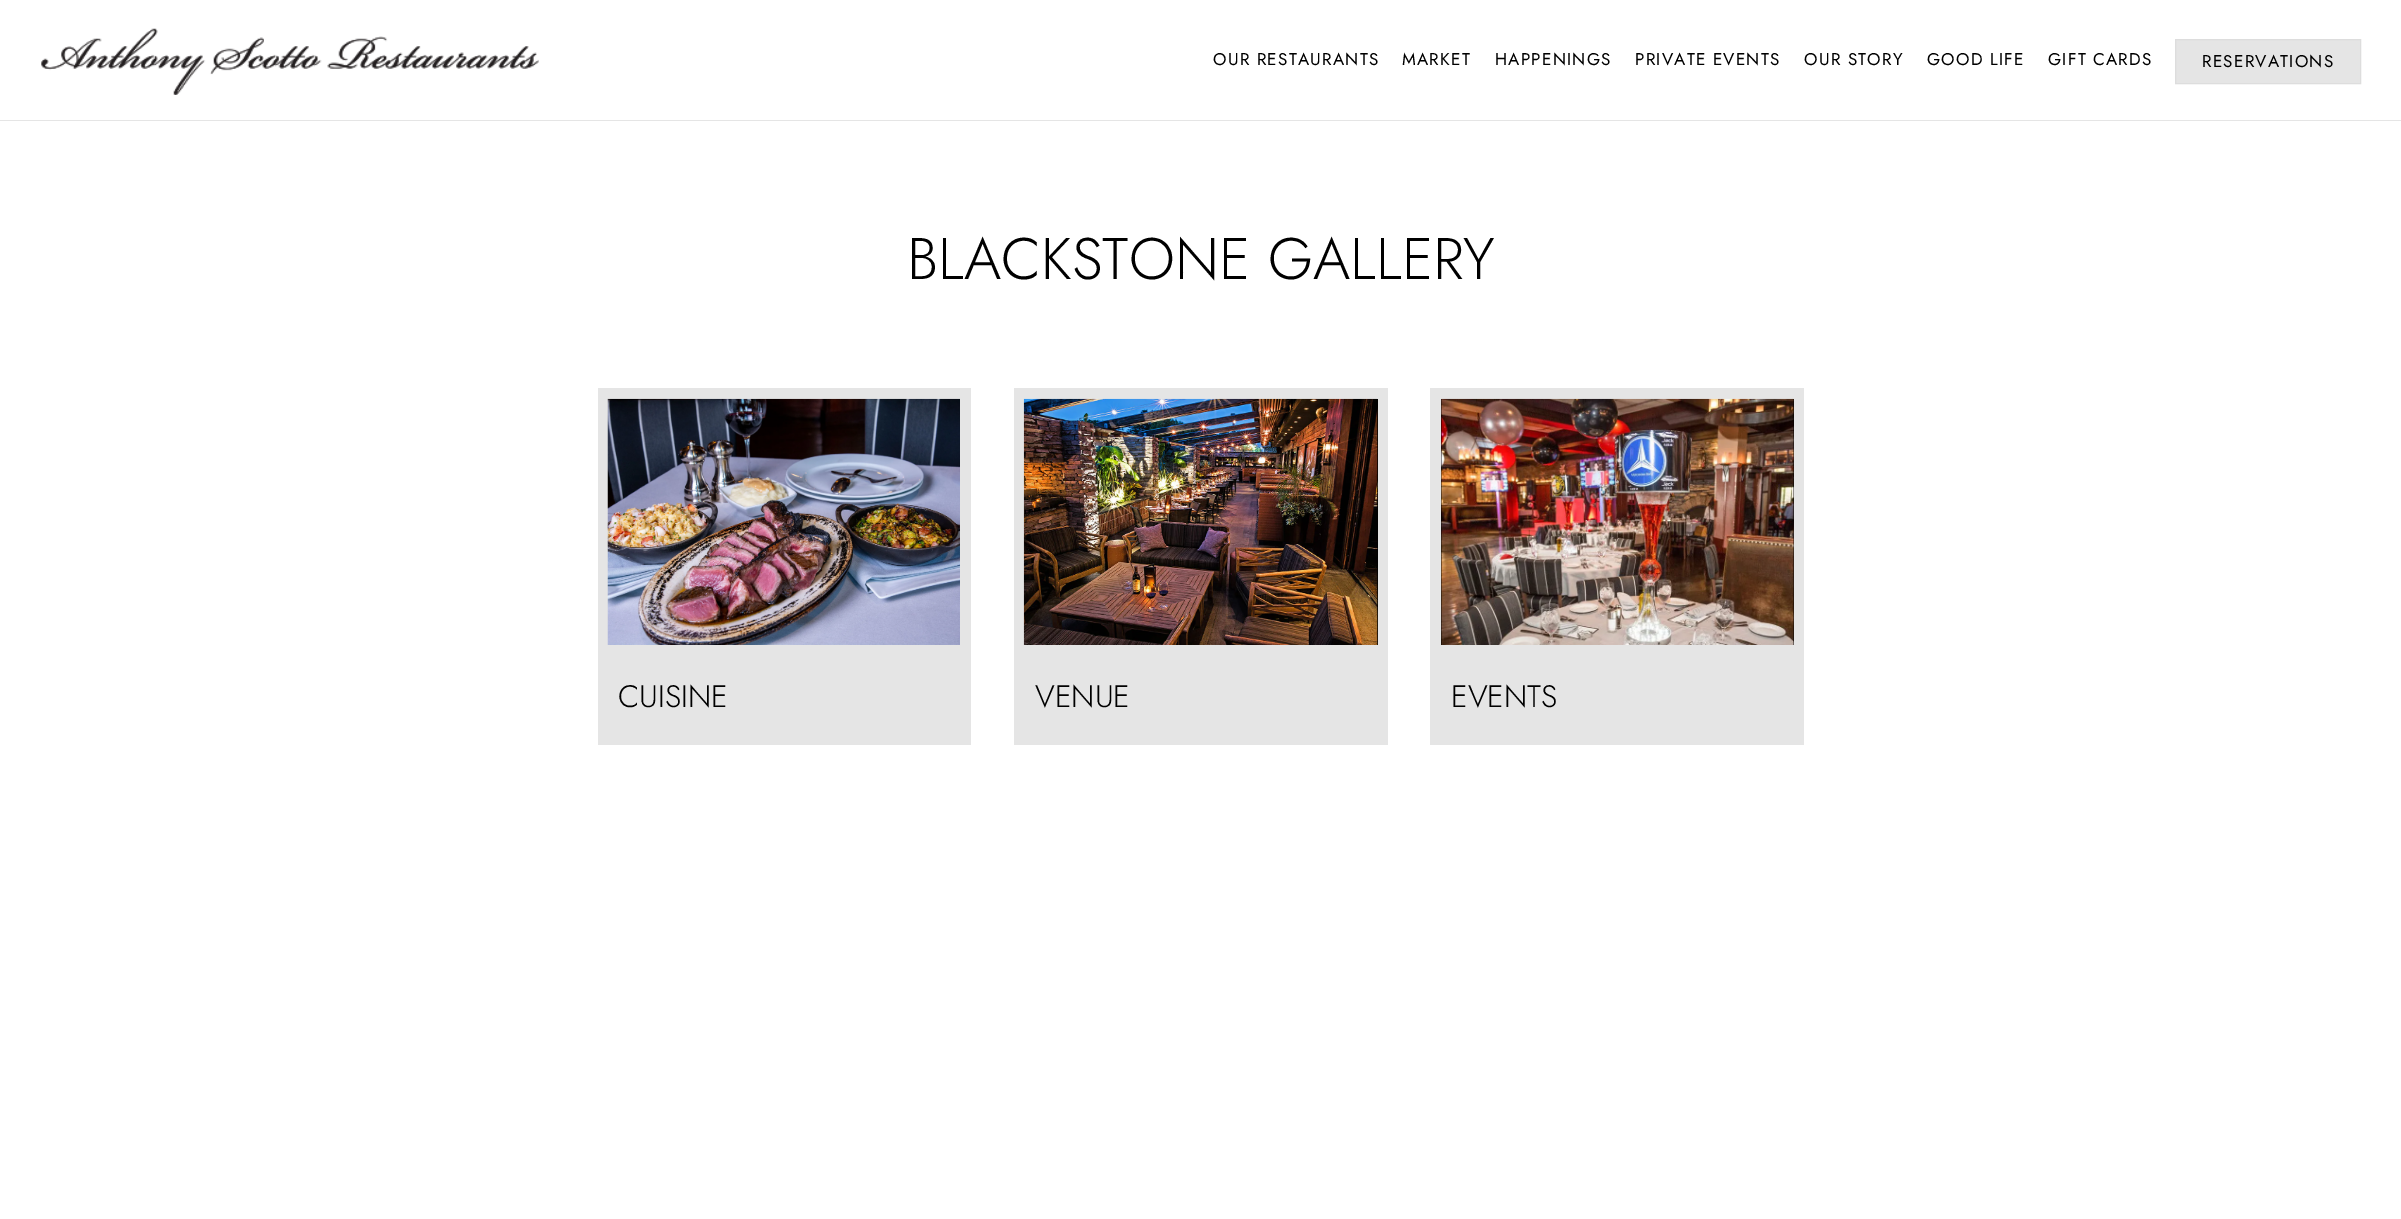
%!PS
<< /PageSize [2401 1219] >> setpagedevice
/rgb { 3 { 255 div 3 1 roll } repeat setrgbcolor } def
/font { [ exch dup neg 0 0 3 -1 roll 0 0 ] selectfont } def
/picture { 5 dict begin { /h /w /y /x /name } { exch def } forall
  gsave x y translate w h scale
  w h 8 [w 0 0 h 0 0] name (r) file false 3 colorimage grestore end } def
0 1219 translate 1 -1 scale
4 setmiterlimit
255 255 255 rgb
0 0 2401 1219 rectfill
229 229 229 rgb
0 120 2401 1 rectfill
(img/1.rgb) 41 28 498 67 picture
2175.5 39.5 moveto 2360.5 39.5 lineto 2360.5 83.5 lineto 2175.5 83.5 lineto closepath gsave fill grestore
221 221 221 rgb
stroke
229 229 229 rgb
598 388 373 357 rectfill
(img/2.rgb) 607 398 353 247 picture
1014 388 374 357 rectfill
0 0 0 rgb
1377 399 1 246 rectfill
(img/3.rgb) 1023 398 355 247 picture
229 229 229 rgb
1430 388 374 357 rectfill
0 0 0 rgb
1441 399 353 246 rectfill
(img/4.rgb) 1441 398 353 247 picture
/Jost-Regular 17 font
1213 65 moveto 1.25 0 (OUR RESTAURANTS) ashow
1402 65 moveto 1.25 0 (MARKET) ashow
1495 65 moveto 1.25 0 (HAPPENINGS) ashow
1635 65 moveto 1.25 0 (PRIVATE EVENTS) ashow
1804 65 moveto 1.25 0 (OUR STORY) ashow
1927 65 moveto 1.25 0 (GOOD LIFE) ashow
2048 65 moveto 1.25 0 (GIFT CARDS) ashow
2202 67 moveto 1.25 0 (RESERVATIONS) ashow
/Jost-Light 58.5 font
907 279 moveto (BLACKSTONE GALLERY) show
/Jost-Light 31 font
[
  [(CUISINE) 618 707]
  [(VENUE) 1035 707]
  [(EVENTS) 1451 707]
] { aload pop moveto show } forall
showpage
